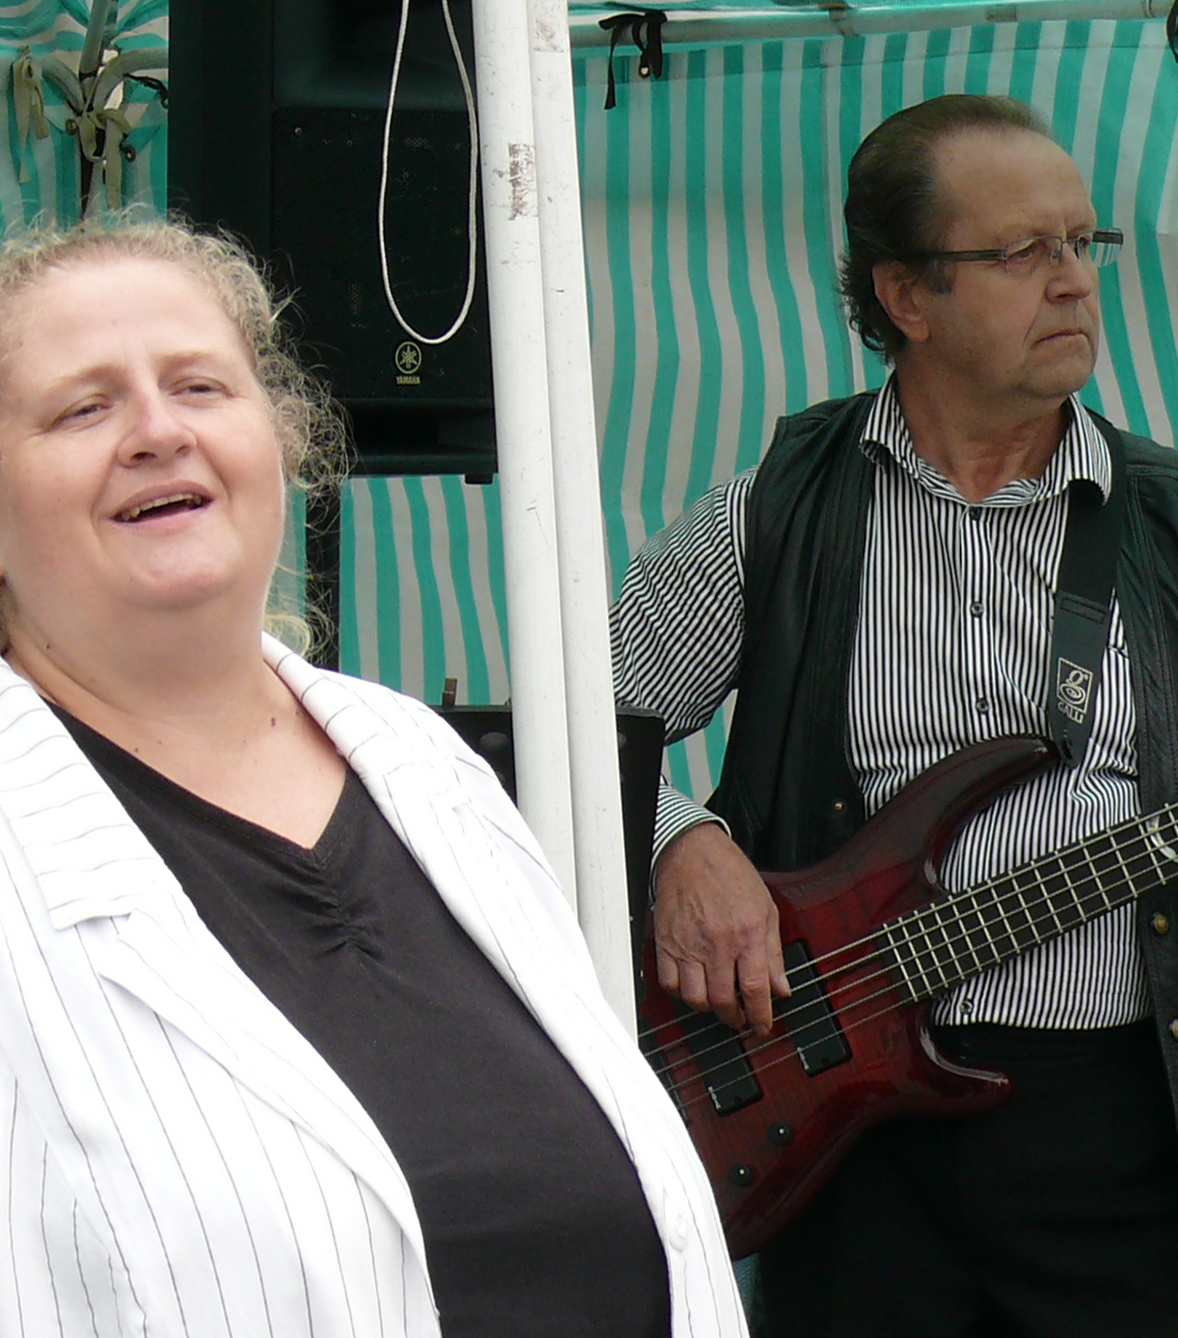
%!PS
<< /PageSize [1178 1338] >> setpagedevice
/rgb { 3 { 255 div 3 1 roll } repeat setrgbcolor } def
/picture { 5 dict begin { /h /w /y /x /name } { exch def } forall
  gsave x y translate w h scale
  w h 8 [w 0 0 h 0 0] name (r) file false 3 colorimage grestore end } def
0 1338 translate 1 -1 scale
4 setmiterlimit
255 255 255 rgb
0 0 1178 1338 rectfill
(img/1.rgb) 0 0 1178 1338 picture
showpage
